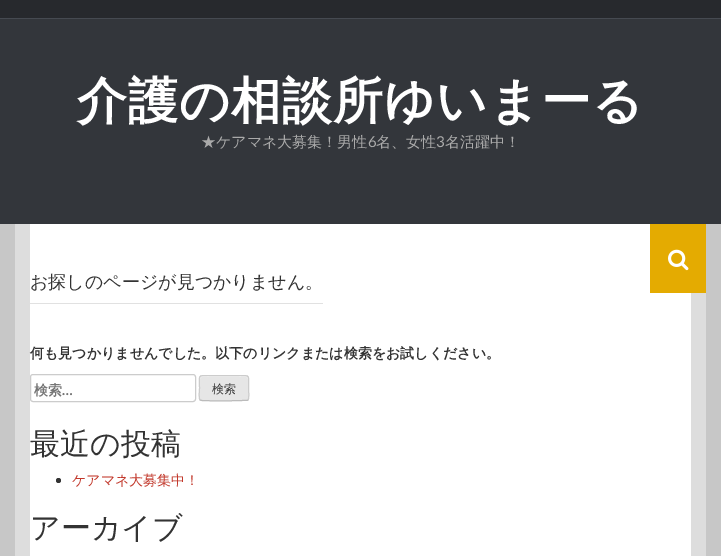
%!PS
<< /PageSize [721 556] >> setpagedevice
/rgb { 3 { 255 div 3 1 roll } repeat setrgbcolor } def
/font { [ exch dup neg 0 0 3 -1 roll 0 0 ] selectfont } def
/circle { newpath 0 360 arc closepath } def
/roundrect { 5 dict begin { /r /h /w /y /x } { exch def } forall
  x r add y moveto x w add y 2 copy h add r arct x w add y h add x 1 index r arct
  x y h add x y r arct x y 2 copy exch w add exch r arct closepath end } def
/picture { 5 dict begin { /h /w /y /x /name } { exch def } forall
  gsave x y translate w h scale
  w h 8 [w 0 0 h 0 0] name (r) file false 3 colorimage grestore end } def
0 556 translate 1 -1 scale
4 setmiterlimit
39 41 45 rgb
0 0 721 556 rectfill
[
  [0 19 721 205 51 54 59]
  [0 18 721 1 70 74 81]
  [15 224 691 332 221 221 221]
  [30 224 661 332 255 255 255]
  [650 224 56 69 228 171 1]
] { aload pop rgb rectfill } forall
(img/1.rgb) 668 249 21 22 picture
[
  [706 224 15 332 199 199 199]
  [0 224 15 332 199 199 199]
  [30 303 293 1 225 225 225]
] { aload pop rgb rectfill } forall
204 204 204 rgb
30.5 374.5 165 27 2.5 roundrect stroke
230 230 230 rgb
199 375 50 26 3 roundrect fill
243 243 243 rgb
202 377 moveto 246 377 lineto 247 377 248 378 248 379 curveto 248 374 243 376 239 376 curveto 209 376 lineto 205 376 200 374 200 379 curveto 200 378 201 377 202 377 curveto closepath fill
187 187 187 rgb
248 400 moveto 246.5 401 206 401 202 400.5 curveto 200 400 lineto stroke
204 204 204 rgb
200 400 moveto 198.5 398 199.5 390.5 199.5 388 curveto 199.5 375 197 375.5 209.5 375.5 curveto 238.5 375.5 lineto 251 375.5 248.5 375 248.5 388 curveto 248.5 390.5 249.5 398 248 400 curveto stroke
51 51 51 rgb
58.5 480.5 2.5 circle fill
/WenQuanYiZenHei-Bold 50 font
255 255 255 rgb
77 118 moveto 1 0 (介護の相談所ゆいまーる) ashow
/WenQuanYiZenHei-Medium 15 font
170 170 170 rgb
201 147 moveto (★ケアマネ大募集！男性) show
/Lato-Regular 15 font
368 147 moveto (6) show
/WenQuanYiZenHei-Medium 15 font
376 147 moveto (名、女性) show
/Lato-Regular 15 font
436 147 moveto (3) show
/WenQuanYiZenHei-Medium 15 font
445 147 moveto (名活躍中！) show
/WenQuanYiZenHei-Medium 18 font
51 51 51 rgb
30 288 moveto (お探しのページが見つかりません。) show
/WenQuanYiZenHei-Bold 14 font
30 358 moveto (何も見つかりませんでした。以下のリンクまたは検索をお試しください。) show
117 117 117 rgb
34 395 moveto (検索) show
/Lato-Bold 14 font
62 395 moveto (…) show
/WenQuanYiZenHei-Medium 12 font
51 51 51 rgb
212 393 moveto (検索) show
/WenQuanYiZenHei-Medium 30 font
30 454 moveto (最近の投稿) show
/WenQuanYiZenHei-Medium 14 font
194 56 43 rgb
72 485 moveto (ケアマネ大募集中！) show
/WenQuanYiZenHei-Medium 30 font
51 51 51 rgb
30 538 moveto (アーカイブ) show
showpage
